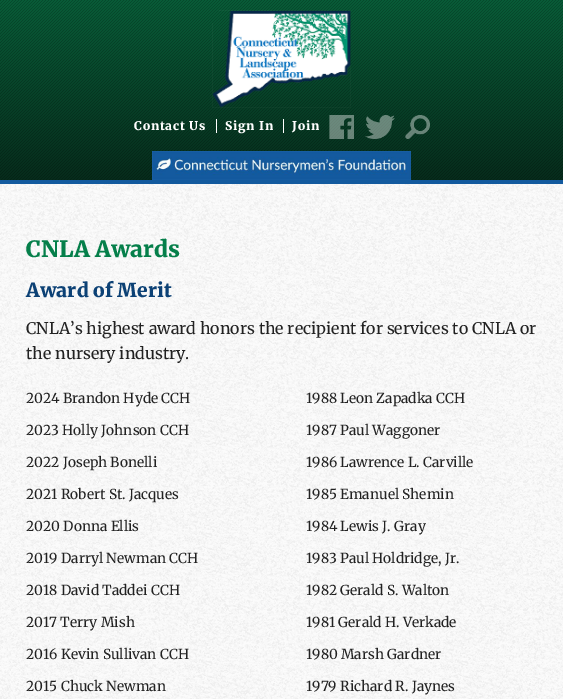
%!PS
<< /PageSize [563 699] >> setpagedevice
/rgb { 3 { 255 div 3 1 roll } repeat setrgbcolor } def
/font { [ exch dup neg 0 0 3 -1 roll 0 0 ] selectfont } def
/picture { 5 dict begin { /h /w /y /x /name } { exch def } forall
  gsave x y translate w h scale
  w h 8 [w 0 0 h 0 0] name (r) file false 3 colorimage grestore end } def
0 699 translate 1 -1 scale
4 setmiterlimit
255 255 255 rgb
0 0 563 699 rectfill
(img/1.rgb) 0 184 563 515 picture
(img/2.rgb) 0 0 563 180 picture
19 90 158 rgb
0 180 563 4 rectfill
(img/3.rgb) 212 10 139 98 picture
255 255 255 rgb
216 119 1 14 rectfill
283 119 1 14 rectfill
(img/4.rgb) 329 115 25 24 picture
(img/5.rgb) 365 115 30 24 picture
(img/6.rgb) 405 115 25 24 picture
(img/7.rgb) 152 151 259 29 picture
/Merriweather-Light 12 font
134 130 moveto 0.75 0 (Contact Us) ashow
225 130 moveto 0.75 0 (Sign In) ashow
292 130 moveto 0.75 0 (Join) ashow
/Merriweather-Light 22.5 font
5 127 74 rgb
26 257 moveto (CNLA Awards) show
/Merriweather-Light 19.25 font
12 65 117 rgb
26 297 moveto (Award of Merit) show
/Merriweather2-Light 16 font
34 34 34 rgb
26 334 moveto (CNLA’s highest award honors the recipient for services to CNLA or) show
26 359 moveto (the nursery industry.) show
/Merriweather2-Light 13.75 font
[
  [(2024 Brandon Hyde CCH) 26 403]
  [(1988 Leon Zapadka CCH) 306 403]
  [(2023 Holly Johnson CCH) 26 435]
  [(1987 Paul Waggoner) 306 435]
  [(2022 Joseph Bonelli) 26 467]
  [(1986 Lawrence L. Carville) 306 467]
  [(2021 Robert St. Jacques) 26 499]
  [(1985 Emanuel Shemin) 306 499]
  [(2020 Donna Ellis) 26 531]
  [(1984 Lewis J. Gray) 306 531]
  [(2019 Darryl Newman CCH) 26 563]
  [(1983 Paul Holdridge, Jr.) 306 563]
  [(2018 David Taddei CCH) 26 595]
  [(1982 Gerald S. Walton) 306 595]
  [(2017 Terry Mish) 26 627]
  [(1981 Gerald H. Verkade) 306 627]
  [(2016 Kevin Sullivan CCH) 26 659]
  [(1980 Marsh Gardner) 306 659]
  [(2015 Chuck Newman) 26 691]
  [(1979 Richard R. Jaynes) 306 691]
] { aload pop moveto show } forall
showpage
